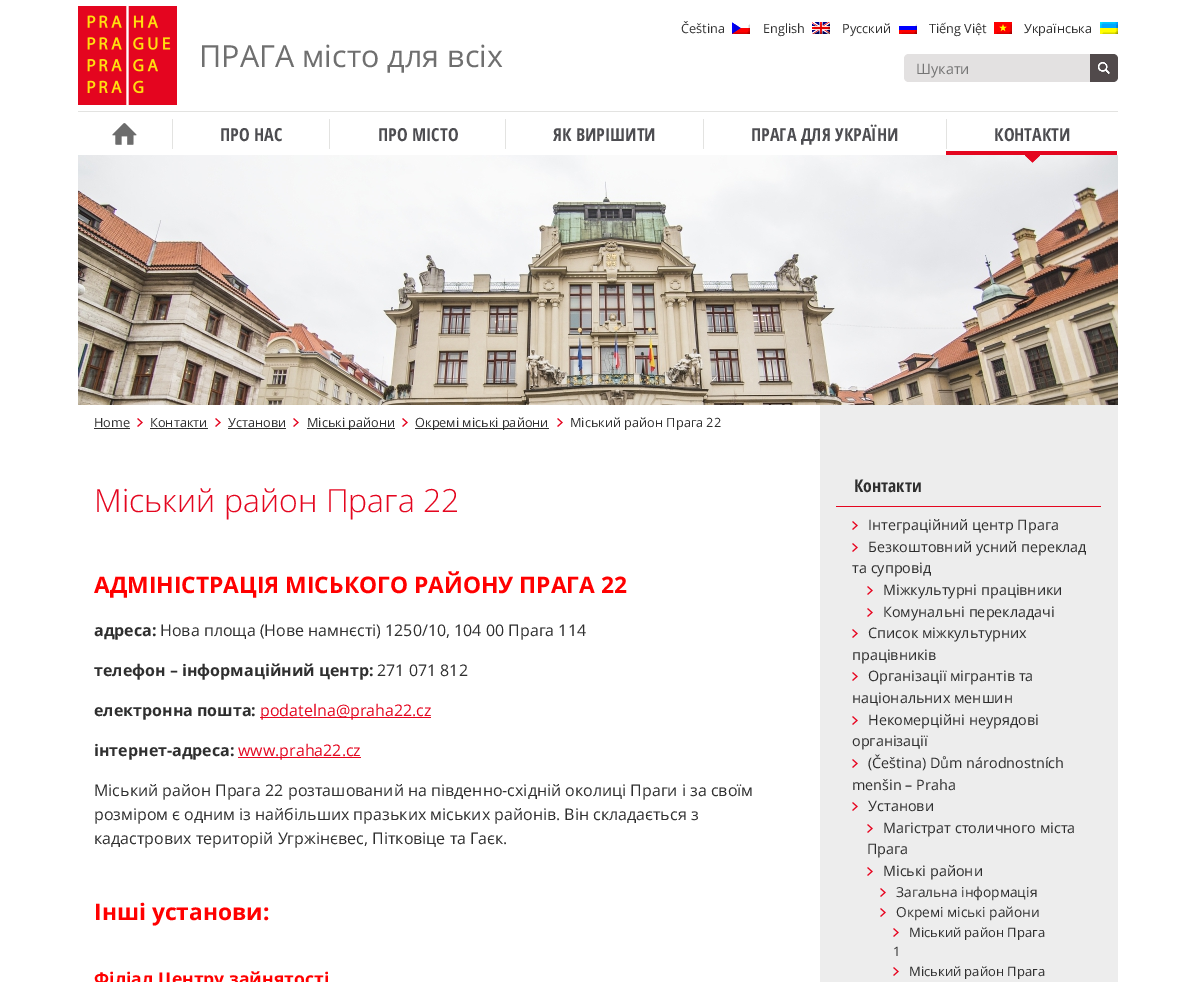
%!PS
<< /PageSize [1195 982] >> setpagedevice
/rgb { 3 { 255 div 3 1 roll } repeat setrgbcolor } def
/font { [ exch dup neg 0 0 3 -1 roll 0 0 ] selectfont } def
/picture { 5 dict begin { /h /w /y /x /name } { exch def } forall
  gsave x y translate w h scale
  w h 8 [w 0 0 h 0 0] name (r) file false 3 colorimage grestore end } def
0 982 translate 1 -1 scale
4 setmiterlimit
255 255 255 rgb
0 0 1195 982 rectfill
(img/1.rgb) 78 6 99 99 picture
(img/2.rgb) 732 22 18 12 picture
(img/3.rgb) 812 22 18 12 picture
(img/4.rgb) 899 24 18 10 picture
(img/5.rgb) 994 22 18 12 picture
(img/6.rgb) 1100 22 18 12 picture
227 225 225 rgb
909 54 moveto 1089 54 lineto 1089.5 54 1090 54.5 1090 55 curveto 1090 81 lineto 1090 81.5 1089.5 82 1089 82 curveto 909 82 lineto 906 82 904 80 904 77 curveto 904 59 lineto 904 56 906 54 909 54 curveto closepath fill
81 74 75 rgb
1090 54 moveto 1113 54 lineto 1116 54 1118 56 1118 59 curveto 1118 77 lineto 1118 80 1116 82 1113 82 curveto 1090 82 lineto closepath fill
(img/7.rgb) 1098 62 12 12 picture
227 227 225 rgb
78 111 1040 1 rectfill
(img/8.rgb) 112 123 25 22 picture
[
  [172 119 1 30 227 227 225]
  [329 119 1 30 227 227 225]
  [505 119 1 30 227 227 225]
  [703 119 1 30 227 227 225]
  [946 151 171 4 228 6 31]
  [946 119 1 30 227 227 225]
] { aload pop rgb rectfill } forall
(img/10.rgb) 78 155 1040 250 picture
(img/9.rgb) 1025 155 15 8 picture
47 47 47 rgb
94 428 36 1 rectfill
(img/11.rgb) 137 418 6 9 picture
150 428 58 1 rectfill
(img/11.rgb) 215 418 6 9 picture
228 428 58 1 rectfill
(img/11.rgb) 293 418 6 9 picture
307 428 88 1 rectfill
(img/11.rgb) 402 418 6 9 picture
415 428 134 1 rectfill
(img/11.rgb) 557 418 6 9 picture
[
  [260 717 171 1 228 6 31]
  [238 757 123 1 228 6 31]
  [820 405 298 577 237 237 237]
  [836 506 265 1 228 6 31]
] { aload pop rgb rectfill } forall
(img/12.rgb) 852 521 6 9 picture
(img/12.rgb) 852 543 6 9 picture
(img/12.rgb) 867 586 6 9 picture
(img/12.rgb) 867 608 6 9 picture
(img/12.rgb) 852 629 6 9 picture
(img/12.rgb) 852 672 6 9 picture
(img/12.rgb) 852 716 6 9 picture
(img/12.rgb) 852 759 6 9 picture
(img/12.rgb) 852 802 6 9 picture
(img/12.rgb) 867 824 6 9 picture
(img/12.rgb) 867 867 6 9 picture
(img/12.rgb) 880 888 6 9 picture
(img/12.rgb) 880 908 6 9 picture
(img/12.rgb) 893 928 6 9 picture
(img/12.rgb) 893 967 6 9 picture
/OpenSans-Regular 30.5 font
111 111 111 rgb
199 67 moveto (ПРАГА місто для всіх) show
/OpenSans-Regular 12.75 font
47 47 47 rgb
[
  [(Čeština) 681 33]
  [(English) 763 33]
  [(Русский) 842 33]
  [(Tiếng Việt) 929 33]
  [(Українська) 1024 33]
] { aload pop moveto show } forall
/OpenSans-Regular 14.4 font
117 117 117 rgb
916 74 moveto (Шукати) show
/OpenSansCondensed-Bold 18 font
77 77 81 rgb
[
  [(ПРО НАС) 220 141]
  [(ПРО МІСТО) 378 141]
  [(ЯК ВИРІШИТИ) 553 141]
  [(ПРАГА ДЛЯ УКРАЇНИ) 751 141]
  [(КОНТАКТИ) 994 141]
] { aload pop moveto show } forall
/OpenSans-Regular 12.75 font
47 47 47 rgb
[
  [(Home) 94 427]
  [(Контакти) 150 427]
  [(Установи) 228 427]
  [(Miські райони) 307 427]
  [(Окремі міські райони) 415 427]
  [(Міський район Прага 22) 570 427]
] { aload pop moveto show } forall
/OpenSans-Light 32 font
228 6 31 rgb
94 512 moveto (Міський район Прага 22) show
/OpenSans-Bold 22.8 font
255 0 0 rgb
94 593 moveto (АДМІНІСТРАЦІЯ МІСЬКОГО РАЙОНУ ПРАГА 22) show
/OpenSans-Bold 16 font
47 47 47 rgb
94 636 moveto (адреса:) show
/OpenSans-Regular 16 font
160 636 moveto (Нова площа \(Нове намнєсті\) 1250/10, 104 00 Прага 114) show
/OpenSans-Bold 16 font
94 676 moveto (телефон – інформаційний центр:) show
/OpenSans-Regular 16 font
377 676 moveto (271 071 812) show
/OpenSans-Bold 16 font
94 716 moveto (електронна пошта:) show
/OpenSans-Regular 16 font
228 6 31 rgb
260 716 moveto (podatelna@praha22.cz) show
/OpenSans-Bold 16 font
47 47 47 rgb
94 756 moveto (інтернет-адреса:) show
/OpenSans-Regular 16 font
228 6 31 rgb
238 756 moveto (www.praha22.cz) show
47 47 47 rgb
[
  [(Міський район Прага 22 розташований на південно-східній околиці Праги і за своїм) 94 796]
  [(розміром є одним із найбільших празьких міських районів. Він складається з) 94 820]
  [(кадастрових територій Угржінєвес, Пітковіце та Гаєк.) 94 844]
] { aload pop moveto show } forall
/OpenSans-Bold 22.8 font
255 0 0 rgb
94 920 moveto (Інші установи:) show
/OpenSans-Bold 17.6 font
94 985 moveto (Філіал Центру зайнятості) show
/OpenSansCondensed-Bold 17.6 font
47 47 47 rgb
854 492 moveto (Контакти) show
/OpenSans-Regular 14.4 font
[
  [(Інтeграційний цeнтр Прага) 868 530]
  [(Безкоштовний усний переклад) 868 552]
  [(та супровід) 852 573]
  [(Міжкультурні працівники) 883 595]
  [(Комунальні перекладачі) 883 617]
  [(Список міжкультурних) 868 638]
  [(працівників) 852 660]
  [(Організації мігрантів та) 868 681]
  [(національних меншин) 852 703]
  [(Нeкoмeрційні нeурядoві) 868 725]
  [(oрганізації) 852 746]
  [(\(Čeština\) Dům národnostních) 868 768]
  [(menšin – Praha) 852 790]
  [(Установи) 868 811]
  [(Магістрат столичного міста) 883 833]
  [(Прага) 867 854]
  [(Miські райони) 883 876]
] { aload pop moveto show } forall
/OpenSans-Regular 13.75 font
896 897 moveto (Загальна інформація) show
896 917 moveto (Окремі міські райони) show
/OpenSans-Regular 13 font
[
  [(Міський район Прага) 909 937]
  [(1) 893 956]
  [(Міський район Прага) 909 976]
] { aload pop moveto show } forall
showpage
